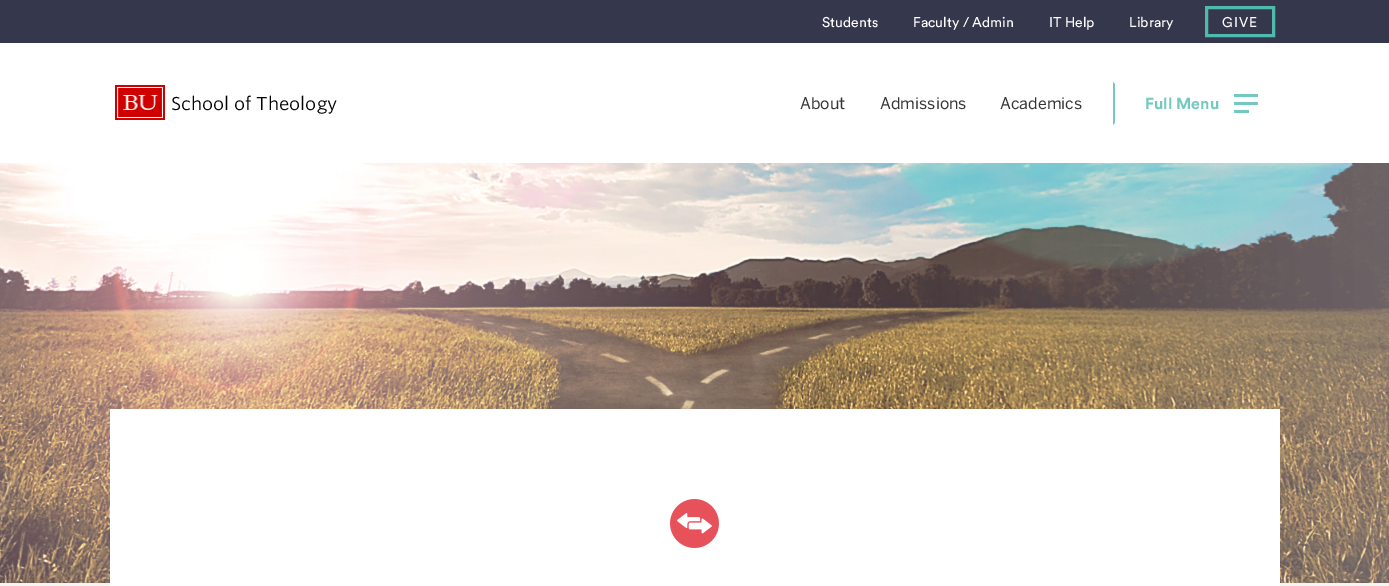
%!PS
<< /PageSize [1389 586] >> setpagedevice
/rgb { 3 { 255 div 3 1 roll } repeat setrgbcolor } def
/font { [ exch dup neg 0 0 3 -1 roll 0 0 ] selectfont } def
/picture { 5 dict begin { /h /w /y /x /name } { exch def } forall
  gsave x y translate w h scale
  w h 8 [w 0 0 h 0 0] name (r) file false 3 colorimage grestore end } def
0 586 translate 1 -1 scale
4 setmiterlimit
255 255 255 rgb
0 0 1389 586 rectfill
53 55 76 rgb
0 0 1389 43 rectfill
80 186 176 rgb
3 setlinewidth
1206.5 7.5 67 28 rectstroke
(img/1.rgb) 115 85 50 35 picture
115 200 192 rgb
1113 125 moveto 1113 82 lineto 1115 84 lineto 1115 123 lineto closepath fill
[
  [1234 102 24 3 115 200 192]
  [1234 94 24 3 115 200 192]
  [1234 110 15 3 115 200 192]
  [0 583 1389 3 243 244 244]
] { aload pop rgb rectfill } forall
(img/2.rgb) 0 163 1389 420 picture
255 255 255 rgb
110 409 1170 177 rectfill
(img/3.rgb) 670 499 49 49 picture
/Circular-Regular 14 font
[
  [(Students) 822 27]
  [(Faculty / Admin) 913 27]
  [(IT Help) 1049 27]
  [(Library) 1129 27]
] { aload pop moveto show } forall
1222 27 moveto 1 0 (GIVE) ashow
/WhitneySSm-Regular 18 font
0 0 0 rgb
171 110 moveto (School of Theology) show
/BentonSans-Regular 16 font
52 52 52 rgb
[
  [(About) 800 109]
  [(Admissions) 880 109]
  [(Academics) 1000 109]
] { aload pop moveto show } forall
/Circular-Bold 16 font
115 200 192 rgb
1145 109 moveto (Full Menu) show
showpage
